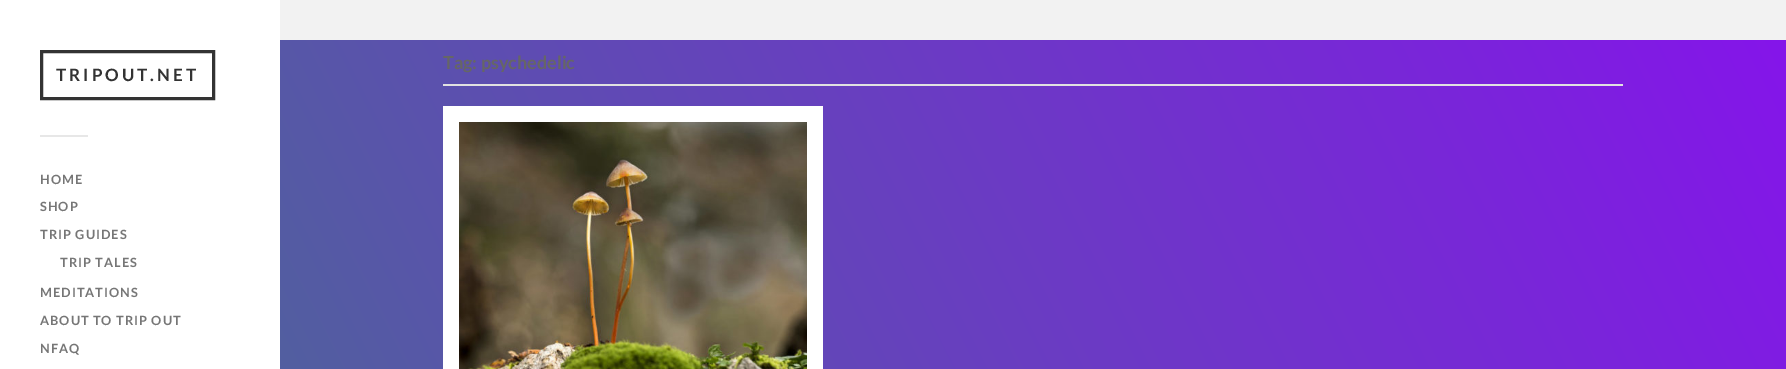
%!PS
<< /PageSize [1786 369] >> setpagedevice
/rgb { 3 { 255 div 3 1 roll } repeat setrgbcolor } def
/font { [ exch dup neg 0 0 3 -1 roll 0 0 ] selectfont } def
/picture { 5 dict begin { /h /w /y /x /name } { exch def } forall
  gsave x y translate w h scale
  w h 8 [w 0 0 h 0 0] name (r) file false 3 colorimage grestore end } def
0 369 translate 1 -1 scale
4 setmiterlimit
242 242 242 rgb
0 0 1786 369 rectfill
gsave 280 40 moveto 1786 40 lineto 1786 369 lineto 280 369 lineto closepath clip newpath
<< /ShadingType 2 /ColorSpace /DeviceRGB /Coords [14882 -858 738 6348] /Extend [true true] /Function << /FunctionType 3 /Domain [0 1] /Functions [<< /FunctionType 2 /Domain [0 1] /C0 [0.051 0.949 0.718] /C1 [0.949 0.051 0.796] /N 1 >> << /FunctionType 2 /Domain [0 1] /C0 [0.949 0.051 0.796] /C1 [0.769 0.949 0.051] /N 1 >> << /FunctionType 2 /Domain [0 1] /C0 [0.769 0.949 0.051] /C1 [0.545 0.051 0.949] /N 1 >> << /FunctionType 2 /Domain [0 1] /C0 [0.545 0.051 0.949] /C1 [0.012 0.816 0.184] /N 1 >>] /Bounds [0.25 0.5 0.75] /Encode [0 1 0 1 0 1 0 1] >> >> shfill grestore
225 225 225 rgb
443 84 1180 2 rectfill
255 255 255 rgb
443 106 380 263 rectfill
(img/1.rgb) 459 122 348 247 picture
0 0 280 369 rectfill
51 51 51 rgb
3 setlinewidth
41.5 51.5 172 47 rectstroke
231 231 231 rgb
40 135 48 2 rectfill
/Lato-Bold 18 font
102 102 102 rgb
443 69 moveto (Tag: psychedelic) show
/Lato-Bold 17 font
51 51 51 rgb
56 81 moveto 3 0 (TRIPOUT.NET) ashow
/Lato-Bold 12.75 font
118 118 118 rgb
40 184 moveto 1 0 (HOME) ashow
40 211 moveto 1 0 (SHOP) ashow
40 239 moveto 1 0 (TRIP GUIDES) ashow
60 267 moveto 1 0 (TRIP TALES) ashow
40 297 moveto 1 0 (MEDITATIONS) ashow
40 325 moveto 1 0 (ABOUT TO TRIP OUT) ashow
40 353 moveto 1 0 (NFAQ) ashow
showpage
